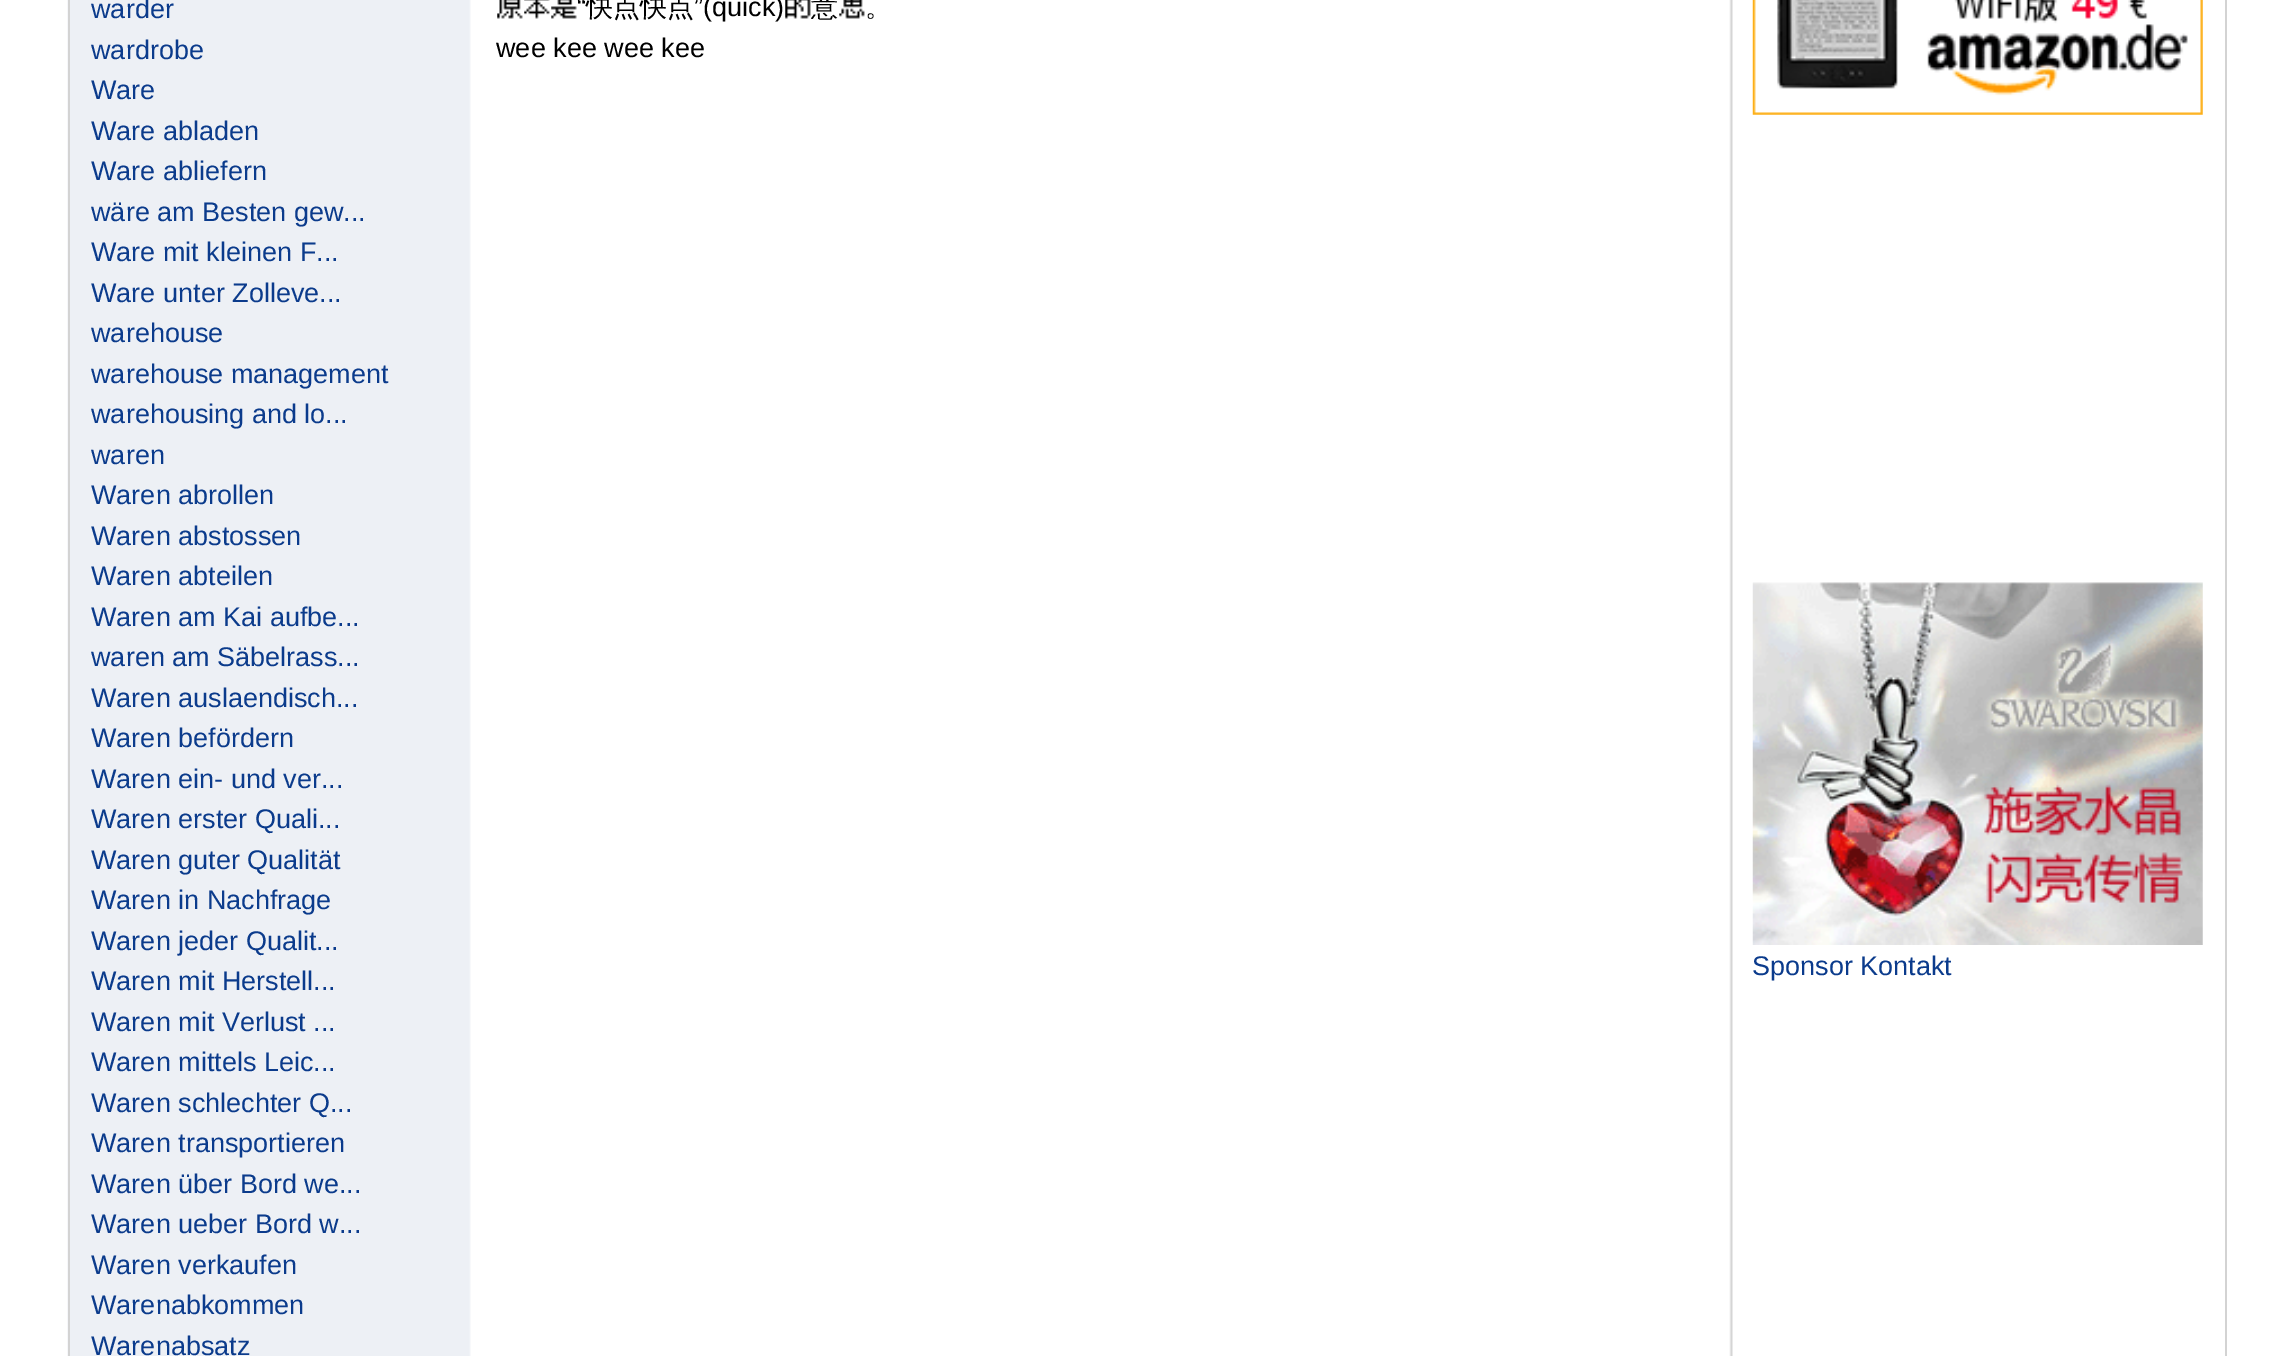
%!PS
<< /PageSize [2291 1356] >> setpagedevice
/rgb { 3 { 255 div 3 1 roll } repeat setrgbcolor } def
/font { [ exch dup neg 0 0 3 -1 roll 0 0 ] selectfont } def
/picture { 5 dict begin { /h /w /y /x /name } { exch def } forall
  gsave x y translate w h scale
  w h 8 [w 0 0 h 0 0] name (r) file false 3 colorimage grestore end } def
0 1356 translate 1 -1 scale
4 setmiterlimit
255 255 255 rgb
0 0 2291 1356 rectfill
(img/1.rgb) 67 0 1666 1356 picture
211 211 211 rgb
2225 0 2 1356 rectfill
68 0 2 1356 rectfill
(img/2.rgb) 497 0 26 19 picture
(img/3.rgb) 524 0 26 19 picture
(img/4.rgb) 551 0 26 19 picture
(img/5.rgb) 785 0 26 19 picture
(img/6.rgb) 839 0 26 19 picture
(img/7.rgb) 1752 0 451 115 picture
(img/8.rgb) 1752 582 451 363 picture
/LiberationSans-Regular 27 font
11 59 140 rgb
[
  [(warder) 91 18]
  [(wardrobe) 91 59]
  [(Ware) 91 99]
  [(Ware abladen) 91 140]
  [(Ware abliefern) 91 180]
  [(wäre am Besten gew...) 91 221]
  [(Ware mit kleinen F...) 91 261]
  [(Ware unter Zolleve...) 91 302]
  [(warehouse) 91 342]
  [(warehouse management) 91 383]
  [(warehousing and lo...) 91 423]
  [(waren) 91 464]
  [(Waren abrollen) 91 504]
  [(Waren abstossen) 91 545]
  [(Waren abteilen) 91 585]
  [(Waren am Kai aufbe...) 91 626]
  [(waren am Säbelrass...) 91 666]
  [(Waren auslaendisch...) 91 707]
  [(Waren befördern) 91 747]
  [(Waren ein- und ver...) 91 788]
  [(Waren erster Quali...) 91 828]
  [(Waren guter Qualität) 91 869]
  [(Waren in Nachfrage) 91 909]
  [(Waren jeder Qualit...) 91 950]
  [(Waren mit Herstell...) 91 990]
  [(Waren mit Verlust ...) 91 1031]
  [(Waren mittels Leic...) 91 1071]
  [(Waren schlechter Q...) 91 1112]
  [(Waren transportieren) 91 1152]
  [(Waren über Bord we...) 91 1193]
  [(Waren ueber Bord w...) 91 1233]
  [(Waren verkaufen) 91 1274]
  [(Warenabkommen) 91 1314]
  [(Warenabsatz) 91 1355]
] { aload pop moveto show } forall
0 0 0 rgb
577 16 moveto (“) show
/WenQuanYiZenHei-Medium 27 font
586 16 moveto (快点快点) show
/LiberationSans-Regular 27 font
694 16 moveto (”\(quick\)) show
/WenQuanYiZenHei-Medium 27 font
811 16 moveto (意) show
865 16 moveto (。) show
/LiberationSans-Regular 27 font
496 57 moveto (wee kee wee kee) show
11 59 140 rgb
1752 975 moveto (Sponsor Kontakt) show
showpage
